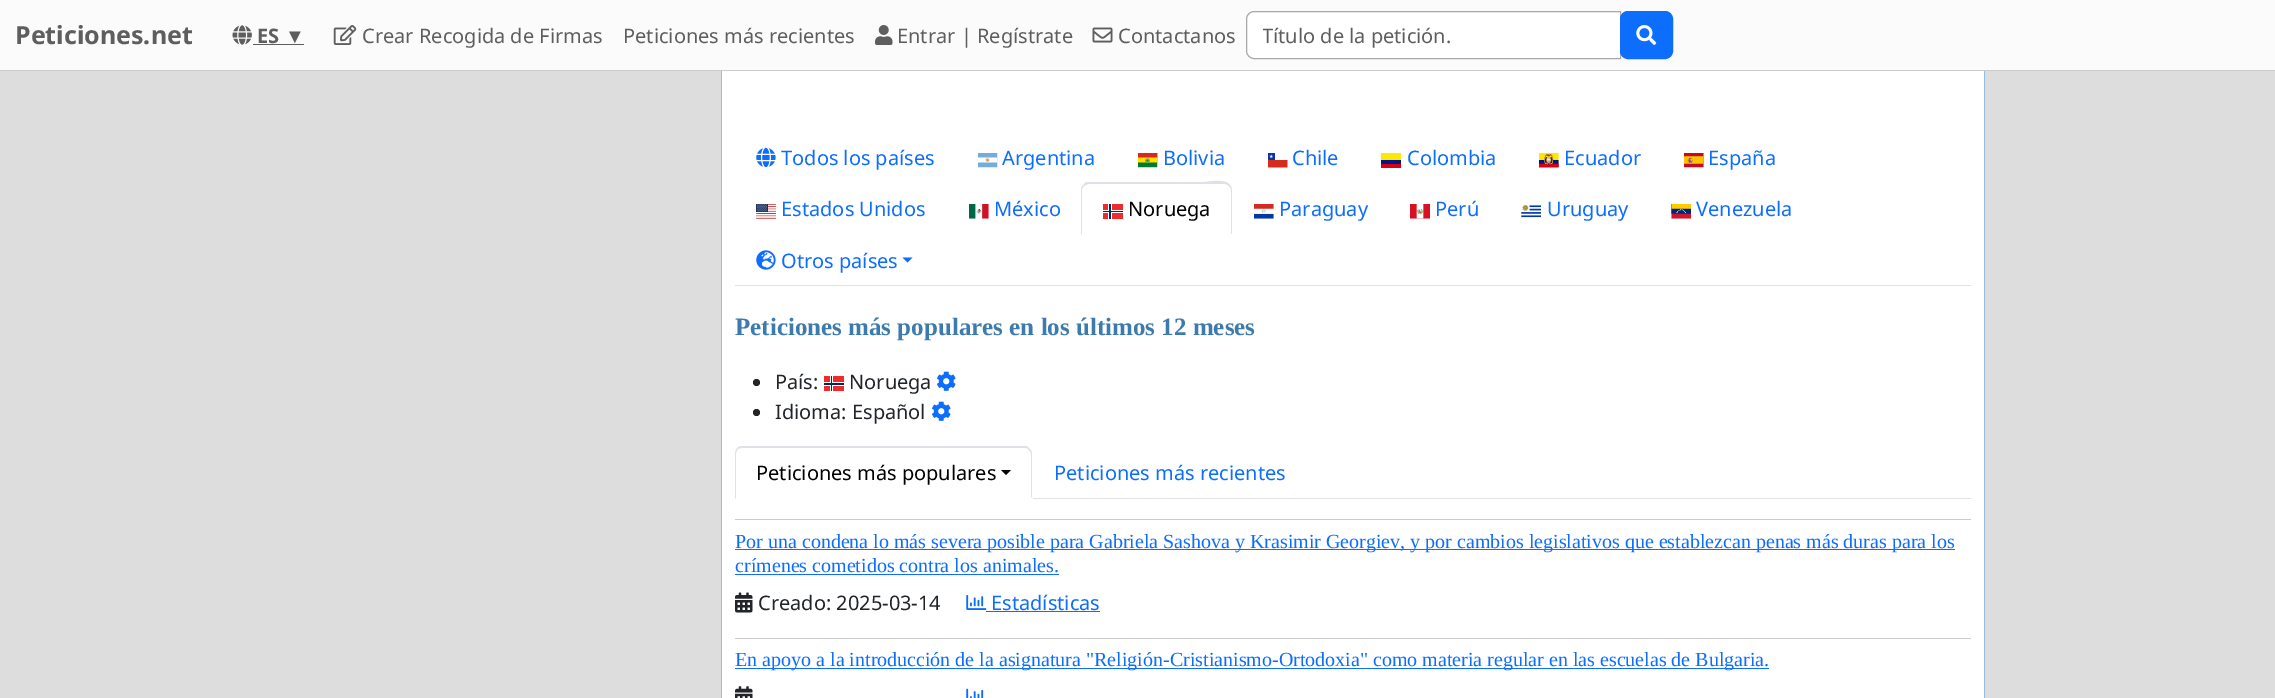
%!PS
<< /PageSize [2275 698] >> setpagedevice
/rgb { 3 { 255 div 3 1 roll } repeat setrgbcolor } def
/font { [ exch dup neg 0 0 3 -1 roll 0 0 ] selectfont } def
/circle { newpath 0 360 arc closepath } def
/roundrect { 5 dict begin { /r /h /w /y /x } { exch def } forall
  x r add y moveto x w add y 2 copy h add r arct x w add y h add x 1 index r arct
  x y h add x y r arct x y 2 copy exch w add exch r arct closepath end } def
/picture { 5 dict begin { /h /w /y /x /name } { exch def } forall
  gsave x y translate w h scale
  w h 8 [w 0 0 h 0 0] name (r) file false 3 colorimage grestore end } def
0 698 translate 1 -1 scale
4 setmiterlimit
221 221 221 rgb
0 0 2275 698 rectfill
251 251 251 rgb
0 0 2275 70 rectfill
204 204 204 rgb
0 70 2275 1 rectfill
(img/1.rgb) 232 25 20 20 picture
94 94 94 rgb
253 44 51 1 rectfill
(img/2.rgb) 333 25 24 20 picture
(img/3.rgb) 875 25 18 20 picture
(img/4.rgb) 1092 27 21 16 picture
255 255 255 rgb
1254 13 moveto 1620 13 lineto 1620 58 lineto 1254 58 lineto 1250.5 58 1248 55.5 1248 52 curveto 1248 19 lineto 1248 15.5 1250.5 13 1254 13 curveto closepath fill
169 169 169 rgb
1254 11.5 moveto 1620.5 11.5 lineto 1620.5 58.5 lineto 1254 58.5 lineto 1250 58.5 1246.5 55 1246.5 51 curveto 1246.5 19 lineto 1246.5 15 1250 11.5 1254 11.5 curveto closepath stroke
13 110 253 rgb
1620.5 11.5 52 47 7.5 roundrect gsave fill grestore
stroke
(img/5.rgb) 1636 25 21 20 picture
255 255 255 rgb
722 71 1262 627 rectfill
149 188 226 rgb
721 71 moveto 1985 71 lineto 1985 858 lineto 1985 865 1979 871 1971 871 curveto 735 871 lineto 727 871 721 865 721 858 curveto closepath 722 71 moveto 1984 71 lineto 1984 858 lineto 1984 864 1978 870 1971 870 curveto 735 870 lineto 728 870 722 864 722 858 curveto closepath eofill
222 226 230 rgb
735 285 1236 1 rectfill
(img/6.rgb) 756 147 20 21 picture
(img/7.rgb) 978 153 20 15 picture
(img/8.rgb) 1138 153 20 15 picture
(img/9.rgb) 1268 153 20 15 picture
[
  [1381 153 20 7 255 232 0]
  [1381 160 20 4 0 20 142]
  [1381 164 20 4 218 0 16]
] { aload pop rgb rectfill } forall
(img/10.rgb) 1539 153 20 15 picture
(img/11.rgb) 1684 153 20 15 picture
(img/12.rgb) 756 204 20 15 picture
(img/13.rgb) 969 204 20 15 picture
222 226 230 rgb
1089 184 moveto 1087 184 1086 185 1084 186 curveto 1083 185 lineto 1086 182 lineto 1204 182 lineto 1207 182 1225 178 1230 185 curveto 1229 186 lineto 1228 185 1226 184 1225 184 curveto closepath fill
1230 185 moveto 1231 186 1232 188 1232 190 curveto 1232 234 lineto 1231 234 lineto 1231 190 lineto 1231 188 1230 187 1229 186 curveto closepath fill
1081 235 moveto 1081 188 lineto 1083 185 lineto 1084 186 lineto 1083 187 1082 188 1082 190 curveto 1082 234 lineto closepath fill
(img/14.rgb) 1103 204 20 15 picture
(img/15.rgb) 1254 204 20 15 picture
(img/16.rgb) 1410 204 20 15 picture
(img/17.rgb) 1521 204 20 14 picture
(img/18.rgb) 1671 204 20 15 picture
(img/19.rgb) 756 250 20 20 picture
13 110 253 rgb
902.5 257.5 moveto 912.5 257.5 lineto 907.5 262.5 lineto closepath fill
33 37 41 rgb
756.5 382.5 3.5 circle fill
(img/20.rgb) 824 376 20 15 picture
(img/21.rgb) 937 371 19 20 picture
756.5 412.5 3.5 circle fill
(img/21.rgb) 932 401 19 20 picture
222 226 230 rgb
1033 498 938 1 rectfill
742 448 moveto 741 448 739 448 738 449 curveto 737 448 lineto 740 446 lineto 1027 446 lineto 1030 449 lineto 1029 450 lineto 1028 449 1027 448 1025 448 curveto closepath fill
1030 449 moveto 1031 450 1032 452 1032 454 curveto 1032 498 lineto 1031 497 lineto 1031 454 lineto 1031 452 1030 451 1029 450 curveto closepath fill
255 255 255 rgb
1032 499 moveto 735 499 lineto 736 498 lineto 1031 498 lineto 1031 497 lineto closepath fill
222 226 230 rgb
735 499 moveto 736 498 lineto 736 454 lineto 736 452 737 450 738 449 curveto 737 448 lineto 736 450 735 452 735 454 curveto closepath fill
0 0 0 rgb
1001 470 moveto 1011 470 lineto 1006 475 lineto closepath fill
[
  [735 519 1236 1 204 204 204]
  [735 549 1220 1 13 110 253]
  [735 574 324 1 13 110 253]
] { aload pop rgb rectfill } forall
(img/22.rgb) 735 592 18 21 picture
(img/23.rgb) 966 595 21 15 picture
[
  [986 611 114 1 13 110 253]
  [735 638 1236 1 204 204 204]
  [735 668 1034 1 13 110 253]
] { aload pop rgb rectfill } forall
(img/24.rgb) 735 686 18 12 picture
(img/25.rgb) 966 688 18 10 picture
/NotoSans-Bold 25 font
94 94 94 rgb
15 44 moveto (Peticiones.net) show
/NotoSans-Bold 20 font
257 43 moveto (ES) show
/LiberationSans-Regular 20 font
285 43 moveto (▼) show
/NotoSans-Regular 20 font
[
  [(Crear Recogida de Firmas) 362 43]
  [(Peticiones más recientes) 623 43]
  [(Entrar | Regístrate) 897 43]
  [(Contactanos) 1118 43]
] { aload pop moveto show } forall
gsave
1263 21 323 28 rectclip
1262 43 moveto (Título de la petición.) show
grestore
13 110 253 rgb
[
  [(Todos los países) 781 165]
  [(Argentina) 1002 165]
  [(Bolivia) 1163 165]
  [(Chile) 1292 165]
  [(Colombia) 1407 165]
  [(Ecuador) 1564 165]
  [(España) 1708 165]
  [(Estados Unidos) 781 216]
  [(México) 994 216]
] { aload pop moveto show } forall
0 0 0 rgb
1128 216 moveto (Noruega) show
13 110 253 rgb
[
  [(Paraguay) 1279 216]
  [(Perú) 1435 216]
  [(Uruguay) 1547 216]
  [(Venezuela) 1696 216]
  [(Otros países) 781 268]
] { aload pop moveto show } forall
/LiberationSerif-Bold 25 font
61 123 174 rgb
735 335 moveto (Peticiones más populares en los últimos 12 meses) show
/NotoSans-Regular 20 font
33 37 41 rgb
[
  [(País:) 775 389]
  [(Noruega) 849 389]
  [(Idioma: Español) 775 419]
] { aload pop moveto show } forall
0 0 0 rgb
756 480 moveto (Peticiones más populares) show
13 110 253 rgb
1054 480 moveto (Peticiones más recientes) show
/LiberationSerif-Regular 20 font
735 548 moveto (Por una condena lo más severa posible para Gabriela Sashova y Krasimir Georgiev, y por cambios legislativos que establezcan penas más duras para los) show
735 572 moveto (crímenes cometidos contra los animales.) show
/NotoSans-Regular 20 font
33 37 41 rgb
758 610 moveto (Creado: 2025-03-14) show
13 110 253 rgb
991 610 moveto (Estadísticas) show
/LiberationSerif-Regular 20 font
735 666 moveto (En apoyo a la introducción de la asignatura "Religión-Cristianismo-Ortodoxia" como materia regular en las escuelas de Bulgaria.) show
showpage
